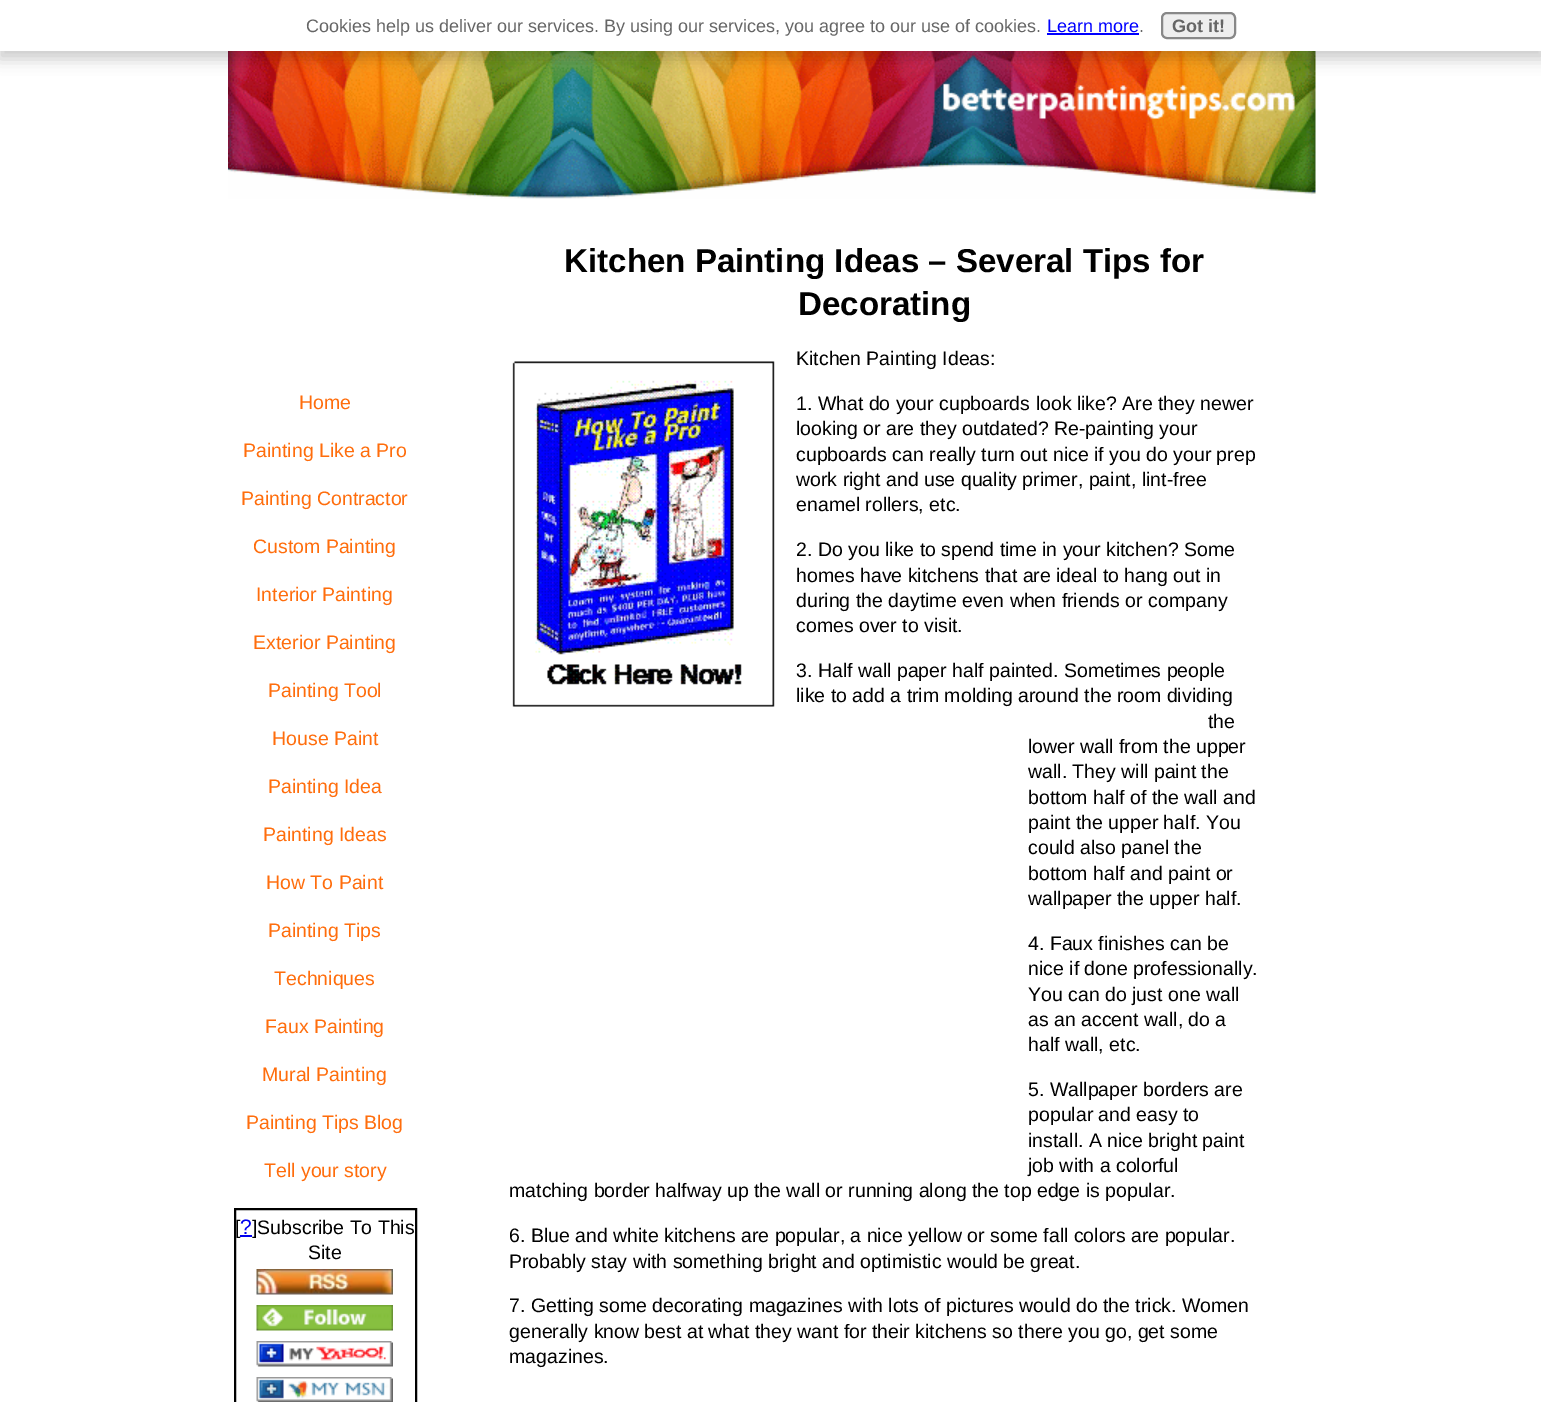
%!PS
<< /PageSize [1541 1402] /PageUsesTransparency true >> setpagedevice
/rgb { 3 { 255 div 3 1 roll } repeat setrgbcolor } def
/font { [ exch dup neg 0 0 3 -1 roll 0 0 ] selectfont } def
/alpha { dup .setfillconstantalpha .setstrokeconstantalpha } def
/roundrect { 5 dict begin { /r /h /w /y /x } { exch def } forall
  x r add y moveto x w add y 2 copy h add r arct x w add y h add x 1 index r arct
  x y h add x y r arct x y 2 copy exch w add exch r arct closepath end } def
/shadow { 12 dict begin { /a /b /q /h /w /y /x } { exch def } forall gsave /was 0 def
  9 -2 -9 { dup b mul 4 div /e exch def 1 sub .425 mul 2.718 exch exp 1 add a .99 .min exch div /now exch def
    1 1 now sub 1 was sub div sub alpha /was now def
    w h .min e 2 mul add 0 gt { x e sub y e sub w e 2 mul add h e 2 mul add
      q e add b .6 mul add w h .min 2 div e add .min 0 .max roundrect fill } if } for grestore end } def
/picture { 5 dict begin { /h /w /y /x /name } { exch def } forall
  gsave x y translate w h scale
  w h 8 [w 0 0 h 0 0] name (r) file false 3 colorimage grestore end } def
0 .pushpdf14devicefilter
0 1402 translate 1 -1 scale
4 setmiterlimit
255 255 255 rgb
0 0 1541 1402 rectfill
(img/1.rgb) 228 51 1088 148 picture
0 0 0 rgb
-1 5 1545 54 0 7.5 0.2 shadow
255 255 255 rgb
0 0 1541 51 rectfill
0 0 255 rgb
1047 33 92 2 rectfill
238 238 238 rgb
1162 13 73 25 5 roundrect gsave fill grestore
136 136 136 rgb
2 setlinewidth
stroke
0 0 0 rgb
235 1209 181 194 rectstroke
(img/2.rgb) 256 1269 137 26 picture
(img/3.rgb) 256 1305 137 26 picture
(img/4.rgb) 256 1341 137 26 picture
(img/5.rgb) 256 1377 137 25 picture
(img/6.rgb) 512 361 263 346 picture
/LiberationSans-Regular 18 font
102 102 102 rgb
306 32 moveto (Cookies help us deliver our services. By using our services, you agree to our use of cookies.) show
0 0 255 rgb
1047 32 moveto (Learn more) show
102 102 102 rgb
1139 32 moveto (.) show
/LiberationSans-Bold 18 font
1172 32 moveto (Got it!) show
/LiberationSans-Regular 19.5 font
255 109 12 rgb
[
  [(Home) 299 409]
  [(Painting Like a Pro) 243 457]
  [(Painting Contractor) 241 505]
  [(Custom Painting) 253 553]
  [(Interior Painting) 256 601]
  [(Exterior Painting) 253 649]
  [(Painting Tool) 268 697]
  [(House Paint) 272 745]
  [(Painting Idea) 268 793]
  [(Painting Ideas) 263 841]
  [(How To Paint) 266 889]
  [(Painting Tips) 268 937]
  [(Techniques) 274 985]
  [(Faux Painting) 265 1033]
  [(Mural Painting) 262 1081]
  [(Painting Tips Blog) 246 1129]
  [(Tell your story) 264 1177]
] { aload pop moveto show } forall
0 0 0 rgb
235 1234 moveto ([) show
/LiberationSans-Regular 21 font
0 0 238 rgb
240 1234 moveto (?) show
240 1235 12 2 rectfill
/LiberationSans-Regular 19.5 font
0 0 0 rgb
252 1234 moveto (]Subscribe To This) show
308 1259 moveto (Site) show
/LiberationSans-Bold 33.1 font
564 272 moveto (Kitchen Painting Ideas – Several Tips for) show
798 315 moveto (Decorating) show
/LiberationSans-Regular 19.5 font
[
  [(Kitchen Painting Ideas:) 796 365]
  [(1. What do your cupboards look like? Are they newer) 796 410]
  [(looking or are they outdated? Re-painting your) 796 435]
  [(cupboards can really turn out nice if you do your prep) 796 461]
  [(work right and use quality primer, paint, lint-free) 796 486]
  [(enamel rollers, etc.) 796 511]
  [(2. Do you like to spend time in your kitchen? Some) 796 556]
  [(homes have kitchens that are ideal to hang out in) 796 582]
  [(during the daytime even when friends or company) 796 607]
  [(comes over to visit.) 796 632]
  [(3. Half wall paper half painted. Sometimes people) 796 677]
  [(like to add a trim molding around the room dividing) 796 702]
  [(the) 1208 728]
  [(lower wall from the upper) 1028 753]
  [(wall. They will paint the) 1028 778]
  [(bottom half of the wall and) 1028 804]
  [(paint the upper half. You) 1028 829]
  [(could also panel the) 1028 854]
  [(bottom half and paint or) 1028 880]
  [(wallpaper the upper half.) 1028 905]
  [(4. Faux finishes can be) 1028 950]
  [(nice if done professionally.) 1028 975]
  [(You can do just one wall) 1028 1001]
  [(as an accent wall, do a) 1028 1026]
  [(half wall, etc.) 1028 1051]
  [(5. Wallpaper borders are) 1028 1096]
  [(popular and easy to) 1028 1121]
  [(install. A nice bright paint) 1028 1147]
  [(job with a colorful) 1028 1172]
  [(matching border halfway up the wall or running along the top edge is popular.) 509 1197]
  [(6. Blue and white kitchens are popular, a nice yellow or some fall colors are popular.) 509 1242]
  [(Probably stay with something bright and optimistic would be great.) 509 1268]
  [(7. Getting some decorating magazines with lots of pictures would do the trick. Women) 509 1312]
  [(generally know best at what they want for their kitchens so there you go, get some) 509 1338]
  [(magazines.) 509 1363]
] { aload pop moveto show } forall
.poppdf14devicefilter showpage
